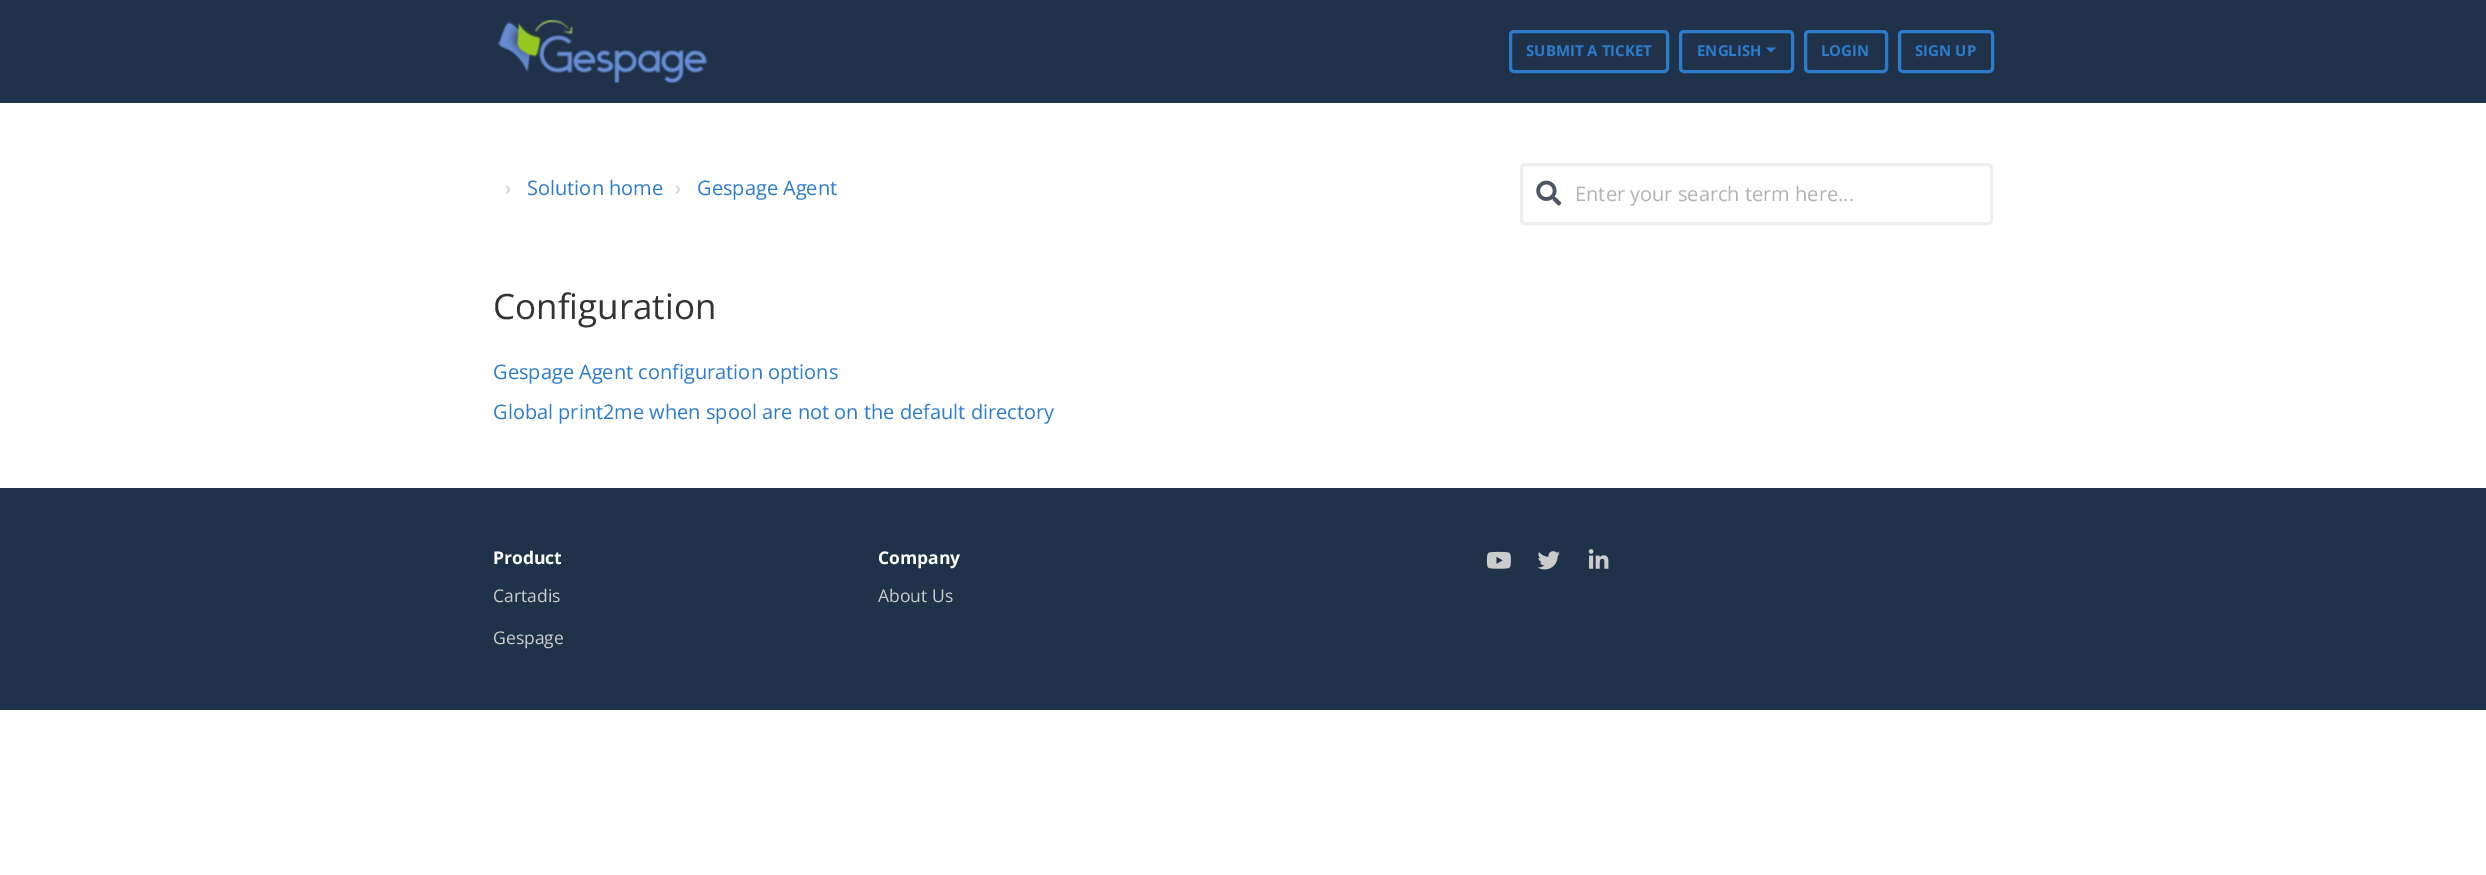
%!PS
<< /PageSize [2486 875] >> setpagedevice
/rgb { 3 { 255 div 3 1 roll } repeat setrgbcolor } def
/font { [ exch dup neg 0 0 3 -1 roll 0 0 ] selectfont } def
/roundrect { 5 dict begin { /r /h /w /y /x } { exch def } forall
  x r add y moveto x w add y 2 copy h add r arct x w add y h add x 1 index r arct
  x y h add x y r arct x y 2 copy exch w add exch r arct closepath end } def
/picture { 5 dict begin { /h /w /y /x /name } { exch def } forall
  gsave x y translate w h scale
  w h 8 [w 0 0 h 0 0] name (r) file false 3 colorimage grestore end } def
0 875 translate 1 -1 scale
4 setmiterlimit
255 255 255 rgb
0 0 2486 875 rectfill
31 50 73 rgb
0 0 2486 103 rectfill
(img/1.rgb) 497 20 211 63 picture
45 124 204 rgb
3 setlinewidth
1510.5 31.5 157 40 3.5 roundrect stroke
1680.5 31.5 112 40 3.5 roundrect stroke
1766 47.5 moveto 1776 47.5 lineto 1771 52.5 lineto closepath fill
1805.5 31.5 81 40 3.5 roundrect stroke
1899.5 31.5 93 40 3.5 roundrect stroke
236 238 239 rgb
1521.5 164.5 470 59 3.5 roundrect stroke
(img/2.rgb) 1536 180 26 26 picture
31 50 73 rgb
0 488 2486 222 rectfill
(img/3.rgb) 1486 551 25 18 picture
(img/4.rgb) 1537 551 23 19 picture
(img/5.rgb) 1588 549 21 20 picture
/OpenSans-Bold 15 font
45 124 204 rgb
[
  [(SUBMIT A TICKET) 1526 56]
  [(ENGLISH) 1697 56]
  [(LOGIN) 1821 56]
  [(SIGN UP) 1915 56]
] { aload pop moveto show } forall
/OpenSans-Regular 20 font
204 204 204 rgb
505 195 moveto (›) show
45 124 204 rgb
527 195 moveto (Solution home) show
204 204 204 rgb
675 195 moveto (›) show
45 124 204 rgb
697 195 moveto (Gespage Agent) show
178 178 178 rgb
1575 201 moveto (Enter your search term here...) show
/OpenSans-Regular 35 font
51 51 51 rgb
493 319 moveto (Configuration) show
/OpenSans-Regular 20 font
45 124 204 rgb
493 379 moveto (Gespage Agent configuration options) show
493 419 moveto (Global print2me when spool are not on the default directory) show
/OpenSans-Bold 17.5 font
255 255 255 rgb
493 564 moveto (Product) show
/OpenSans-Regular 17.5 font
204 204 204 rgb
493 602 moveto (Cartadis) show
493 644 moveto (Gespage) show
/OpenSans-Bold 17.5 font
255 255 255 rgb
878 564 moveto (Company) show
/OpenSans-Regular 17.5 font
204 204 204 rgb
878 602 moveto (About Us) show
showpage
